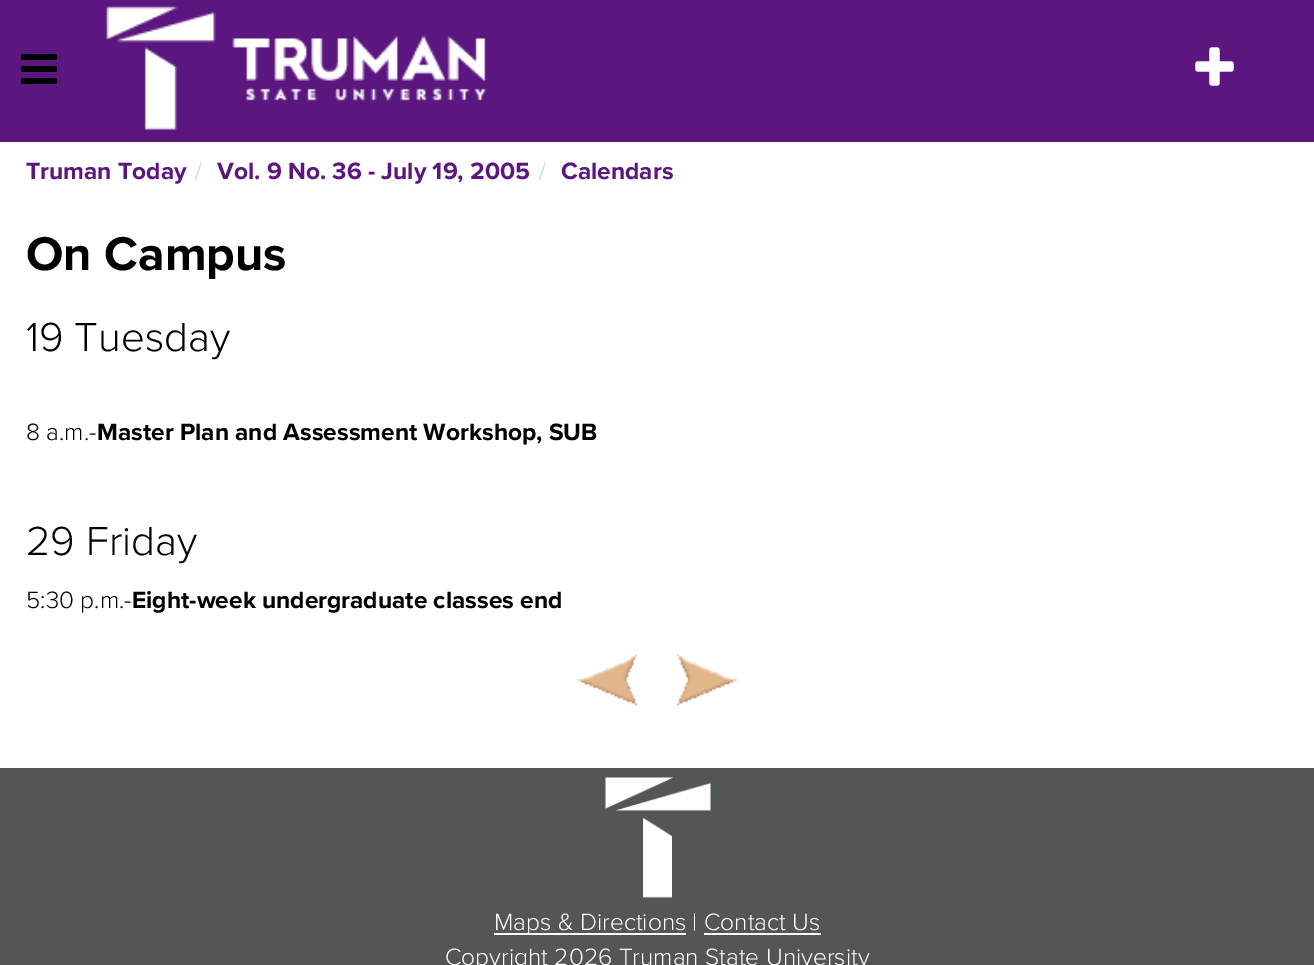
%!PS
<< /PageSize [1314 965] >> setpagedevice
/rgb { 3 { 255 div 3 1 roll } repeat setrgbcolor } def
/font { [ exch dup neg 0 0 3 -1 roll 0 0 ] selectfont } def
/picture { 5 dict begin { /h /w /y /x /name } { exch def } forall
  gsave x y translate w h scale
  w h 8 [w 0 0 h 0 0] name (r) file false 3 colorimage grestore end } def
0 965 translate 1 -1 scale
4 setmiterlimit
255 255 255 rgb
0 0 1314 965 rectfill
91 23 127 rgb
0 0 1314 142 rectfill
(img/1.rgb) 21 54 36 30 picture
(img/2.rgb) 106 6 380 124 picture
(img/3.rgb) 1195 47 39 39 picture
(img/4.rgb) 577 654 60 52 picture
(img/5.rgb) 677 654 60 52 picture
82 86 86 rgb
0 768 1314 197 rectfill
(img/6.rgb) 605 777 106 121 picture
255 255 255 rgb
494 933 192 2 rectfill
704 933 117 2 rectfill
/ProximaNova-Bold 24.5 font
91 23 127 rgb
26 179 moveto (Truman Today) show
/ProximaNova-Light 24.5 font
204 204 204 rgb
195 179 moveto (/) show
/ProximaNova-Bold 24.5 font
91 23 127 rgb
217 179 moveto (Vol. 9 No. 36 - July 19, 2005) show
/ProximaNova-Light 24.5 font
204 204 204 rgb
539 179 moveto (/) show
/ProximaNova-Bold 24.5 font
91 23 127 rgb
561 179 moveto (Calendars) show
/ProximaNova-Bold 49 font
0 0 0 rgb
26 270 moveto (On Campus) show
/ProximaNova-Light 42 font
26 351 moveto (19 Tuesday) show
/ProximaNova-Light 24.5 font
26 440 moveto (8 a.m.-) show
/ProximaNova-Bold 24.5 font
97 440 moveto (Master Plan and Assessment Workshop, SUB) show
/ProximaNova-Light 42 font
26 555 moveto (29 Friday) show
/ProximaNova-Light 24.5 font
26 608 moveto (5:30 p.m.-) show
/ProximaNova-Bold 24.5 font
132 608 moveto (Eight-week undergraduate classes end) show
/ProximaNova-Light 24.5 font
255 255 255 rgb
494 930 moveto (Maps & Directions | Contact Us) show
445 965 moveto (Copyright 2026 Truman State University) show
showpage
